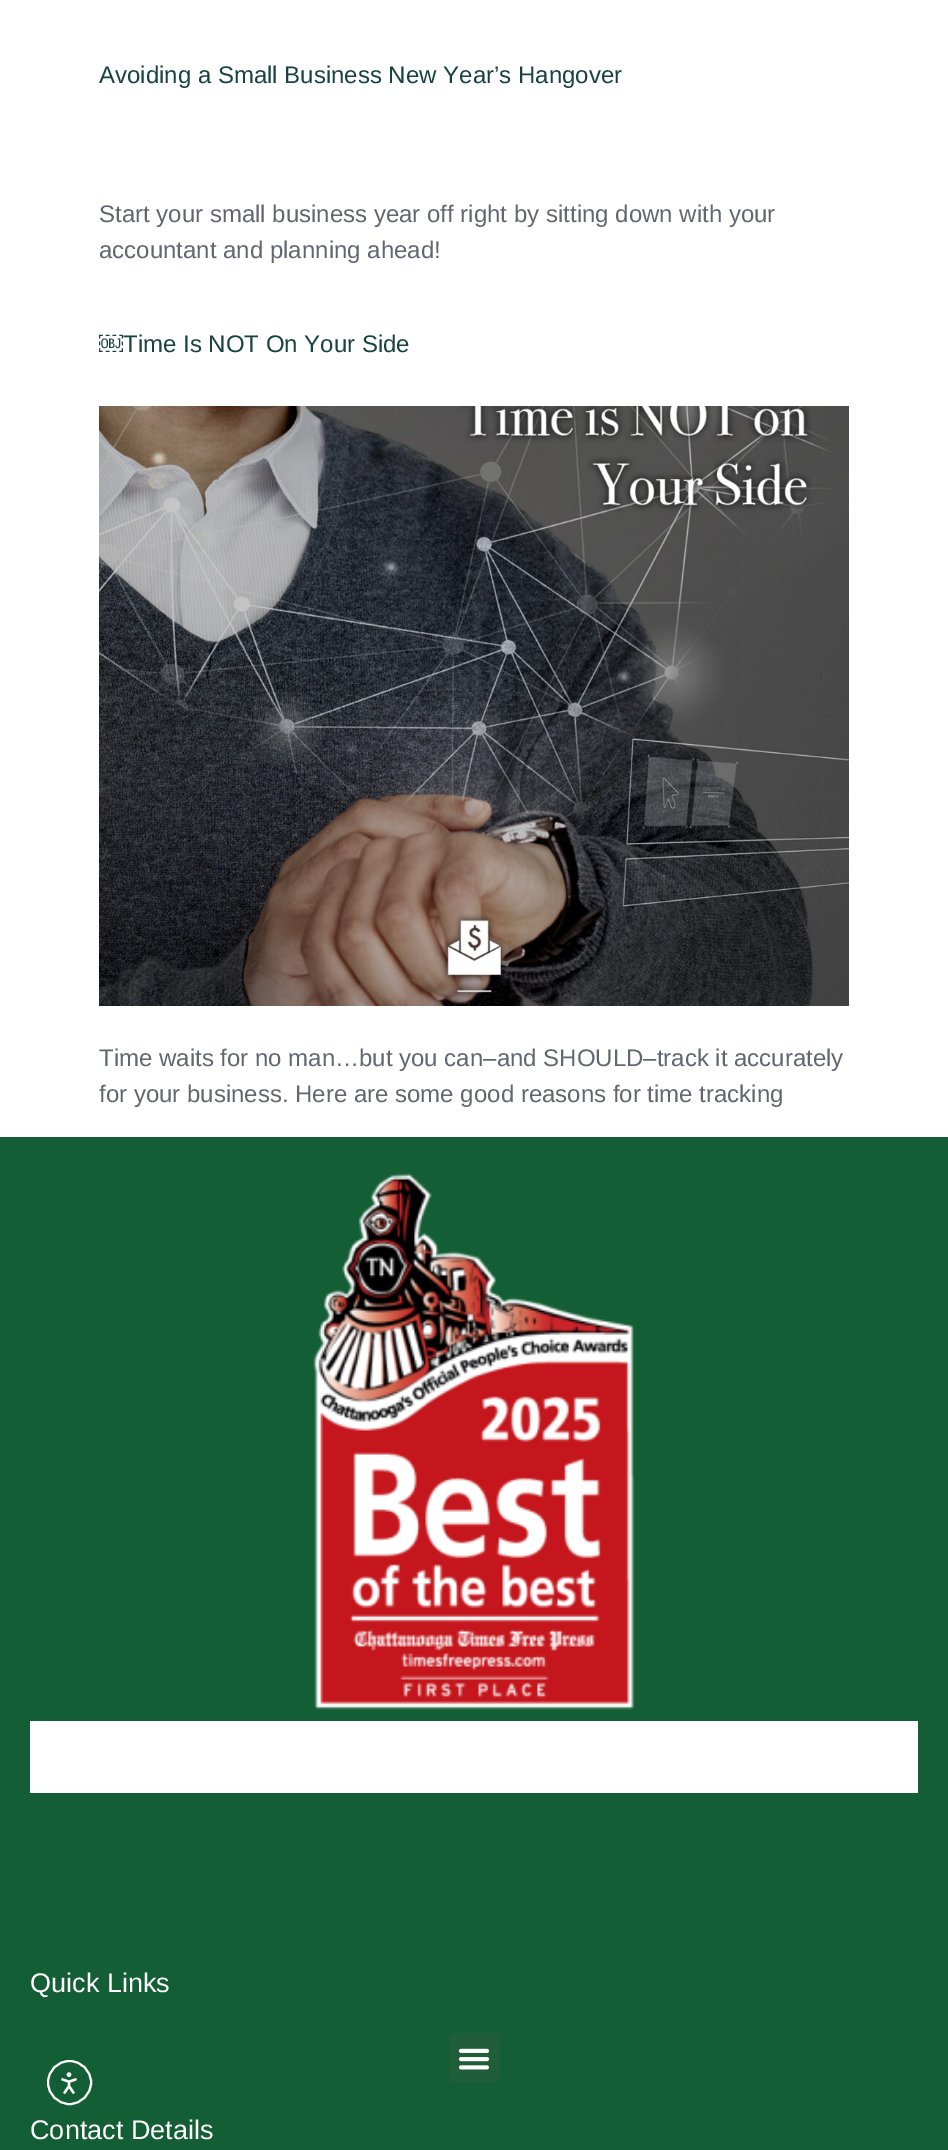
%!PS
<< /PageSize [948 2150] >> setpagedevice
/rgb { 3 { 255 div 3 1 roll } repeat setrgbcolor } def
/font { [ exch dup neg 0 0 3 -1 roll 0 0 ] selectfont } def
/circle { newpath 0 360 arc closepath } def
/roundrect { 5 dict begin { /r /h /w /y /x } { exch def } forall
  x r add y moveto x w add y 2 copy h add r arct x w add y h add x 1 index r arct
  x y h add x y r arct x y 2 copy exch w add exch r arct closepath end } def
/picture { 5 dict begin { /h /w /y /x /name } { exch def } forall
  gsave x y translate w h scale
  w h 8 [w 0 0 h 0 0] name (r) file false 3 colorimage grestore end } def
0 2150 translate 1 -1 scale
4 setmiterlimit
255 255 255 rgb
0 0 948 2150 rectfill
(img/1.rgb) 99 406 750 600 picture
19 94 52 rgb
0 1137 948 1013 rectfill
(img/2.rgb) 313 1173 322 537 picture
255 255 255 rgb
30 1721 888 72 rectfill
31 94 56 rgb
449 2033 51 49 5 roundrect fill
(img/3.rgb) 458 2048 32 22 picture
255 255 255 rgb
2 setlinewidth
69.5 2082.5 21.5 circle stroke
(img/4.rgb) 61 2072 16 22 picture
/LiberationSans-Regular 24 font
24 67 65 rgb
99 83 moveto (Avoiding a Small Business New Year’s Hangover) show
97 102 112 rgb
99 222 moveto (Start your small business year off right by sitting down with your) show
99 258 moveto (accountant and planning ahead!) show
24 67 65 rgb
99 352 moveto (￼Time Is NOT On Your Side) show
97 102 112 rgb
99 1066 moveto (Time waits for no man…but you can–and SHOULD–track it accurately) show
99 1102 moveto (for your business. Here are some good reasons for time tracking) show
/LiberationSans-Regular 27 font
255 255 255 rgb
30 1992 moveto (Quick Links) show
30 2139 moveto (Contact Details) show
showpage
